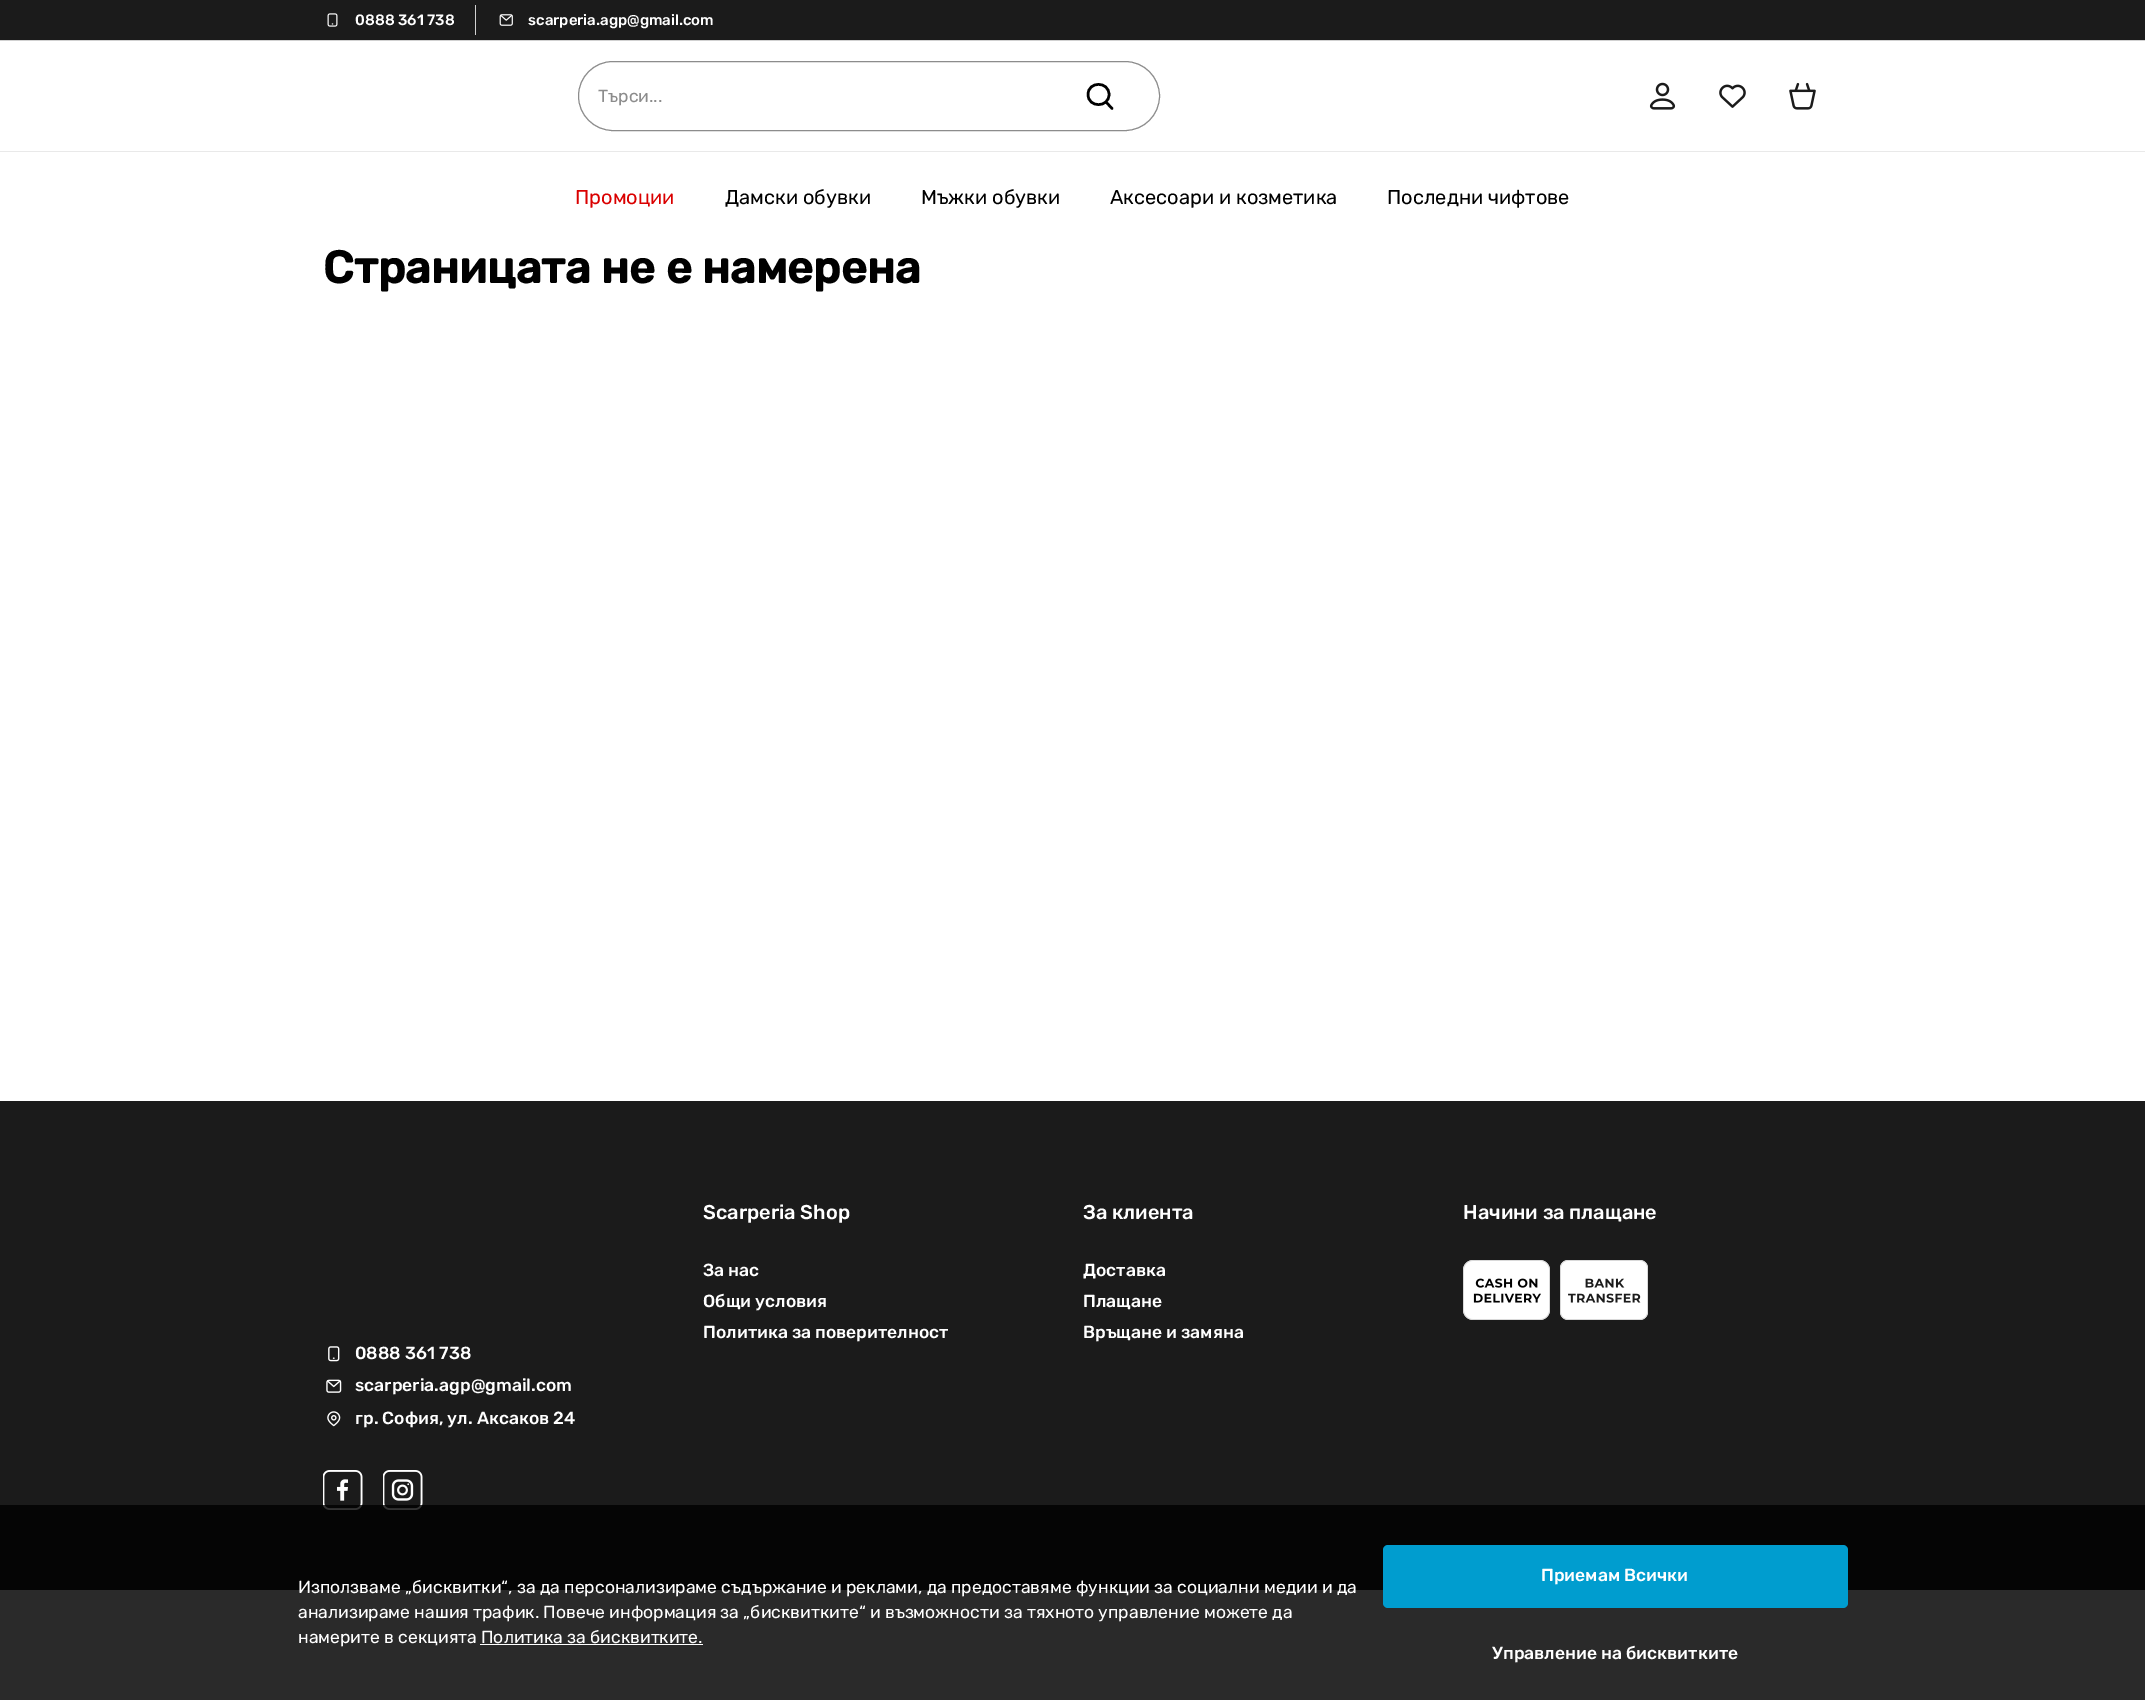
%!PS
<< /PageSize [2145 1700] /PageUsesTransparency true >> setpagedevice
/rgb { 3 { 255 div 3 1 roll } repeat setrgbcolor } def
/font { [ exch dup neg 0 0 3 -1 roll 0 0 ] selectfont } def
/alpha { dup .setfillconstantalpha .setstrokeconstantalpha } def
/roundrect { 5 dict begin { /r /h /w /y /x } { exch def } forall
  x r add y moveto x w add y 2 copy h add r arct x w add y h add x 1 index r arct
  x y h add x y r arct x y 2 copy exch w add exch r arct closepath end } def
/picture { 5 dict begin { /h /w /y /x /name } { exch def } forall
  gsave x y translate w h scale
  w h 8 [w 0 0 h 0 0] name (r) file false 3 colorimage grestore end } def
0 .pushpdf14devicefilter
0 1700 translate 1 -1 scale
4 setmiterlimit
255 255 255 rgb
0 0 2145 1700 rectfill
27 27 27 rgb
0 0 2145 40 rectfill
209 209 209 rgb
0 40 2145 1 rectfill
(img/1.rgb) 327 13 11 14 picture
475 5 1 30 rectfill
(img/2.rgb) 499 14 14 12 picture
233 233 233 rgb
0 151 2145 1 rectfill
140 140 140 rgb
578.5 61.5 581 69 34.5 roundrect stroke
0 0 0 rgb
2.5 setlinewidth
1 setlinecap
1 setlinejoin
1112 108.5 moveto 1106 102 lineto 1088 94.5 moveto 1088 81 1109 81 1109 94.5 curveto 1109 108 1088 108 1088 94.5 curveto closepath stroke
(img/3.rgb) 1649 82 27 28 picture
(img/4.rgb) 1719 84 27 24 picture
(img/5.rgb) 1789 82 27 28 picture
27 27 27 rgb
0 1101 2145 489 rectfill
(img/6.rgb) 1463 1260 87 60 picture
(img/7.rgb) 1560 1260 88 60 picture
(img/8.rgb) 328 1346 12 16 picture
(img/9.rgb) 326 1379 16 14 picture
(img/10.rgb) 327 1411 14 16 picture
(img/11.rgb) 323 1470 40 40 picture
(img/12.rgb) 383 1470 40 40 picture
[
  [0 1590 2145 110 209 209 209]
] { aload pop rgb rectfill } forall
0.8 alpha
[
  [0 1505 2145 195 0 0 0]
] { aload pop rgb rectfill } forall
1 alpha
[
  [480 1644 223 1 255 255 255]
] { aload pop rgb rectfill } forall
0 157 207 rgb
1383 1545 465 63 5 roundrect fill
/Rubik-Medium 15 font
255 255 255 rgb
355 25 moveto (0888 361 738) show
528 25 moveto (scarperia.agp@gmail.com) show
/Rubik-Regular 17.5 font
140 140 140 rgb
598 102 moveto (Търси...) show
/Rubik-Regular 20 font
218 0 0 rgb
575 204 moveto (Промоции) show
0 0 0 rgb
[
  [(Дамски обувки) 725 204]
  [(Мъжки обувки) 921 204]
  [(Аксесоари и козметика) 1110 204]
  [(Последни чифтове) 1387 204]
] { aload pop moveto show } forall
/Rubik-Bold 45 font
323 283 moveto (Страницата не е намерена) show
/Rubik-Medium 20 font
255 255 255 rgb
703 1219 moveto (Scarperia Shop) show
/Rubik-Medium 17.5 font
[
  [(За нас) 703 1276]
  [(Общи условия) 703 1307]
  [(Политика за поверителност) 703 1338]
] { aload pop moveto show } forall
/Rubik-Medium 20 font
1083 1219 moveto (За клиента) show
/Rubik-Medium 17.5 font
[
  [(Доставка) 1083 1276]
  [(Плащане) 1083 1307]
  [(Връщане и замяна) 1083 1338]
] { aload pop moveto show } forall
/Rubik-Medium 20 font
1463 1219 moveto (Начини за плащане) show
/Rubik-Medium 17.5 font
[
  [(0888 361 738) 355 1359]
  [(scarperia.agp@gmail.com) 355 1391]
  [(гр. София, ул. Аксаков 24) 355 1424]
] { aload pop moveto show } forall
/Rubik-Regular 17.5 font
[
  [(Използваме „бисквитки“, за да персонализираме съдържание и реклами, да предоставяме функции за социални медии и да) 298 1593]
  [(анализираме нашия трафик. Повече информация за „бисквитките“ и възможности за тяхното управление можете да) 298 1618]
  [(намерите в секцията Политика за бисквитките.) 298 1643]
] { aload pop moveto show } forall
/Rubik-Medium 17.5 font
1541 1581 moveto (Приемам Всички) show
1492 1659 moveto (Управление на бисквитките) show
.poppdf14devicefilter showpage
